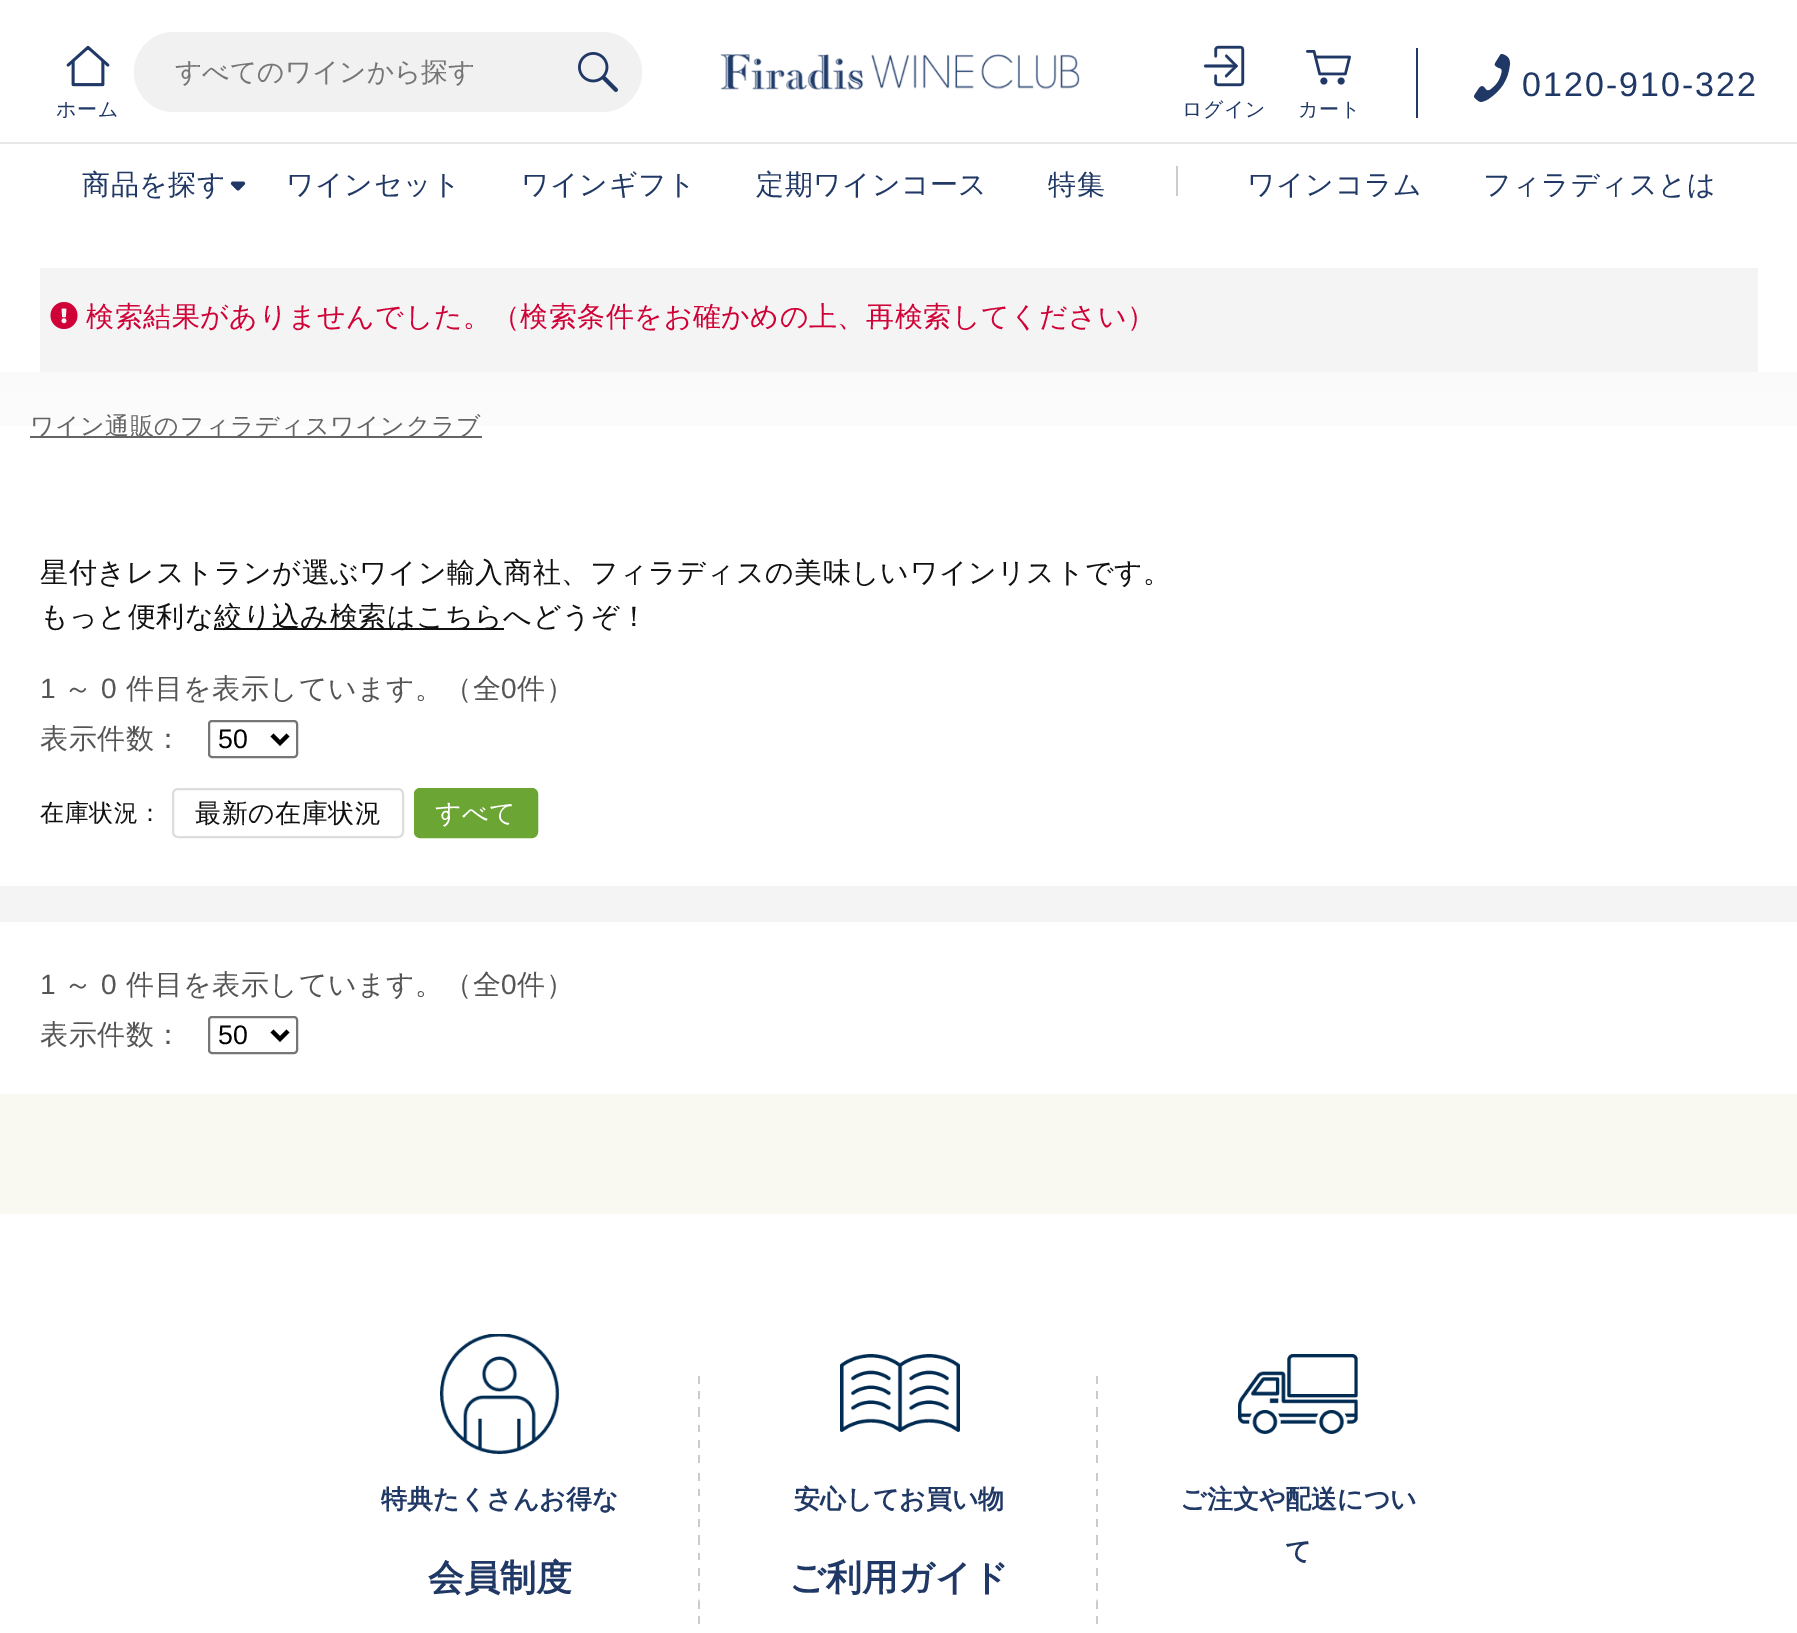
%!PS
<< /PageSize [1797 1633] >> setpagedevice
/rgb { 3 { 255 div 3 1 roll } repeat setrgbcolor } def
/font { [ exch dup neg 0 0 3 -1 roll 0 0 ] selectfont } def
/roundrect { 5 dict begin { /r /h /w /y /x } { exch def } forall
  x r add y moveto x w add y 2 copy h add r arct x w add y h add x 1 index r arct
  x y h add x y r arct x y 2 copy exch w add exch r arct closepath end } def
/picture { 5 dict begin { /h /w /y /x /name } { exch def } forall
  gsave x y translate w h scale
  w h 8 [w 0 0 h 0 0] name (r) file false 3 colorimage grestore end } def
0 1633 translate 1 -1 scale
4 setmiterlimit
255 255 255 rgb
0 0 1797 1633 rectfill
231 231 231 rgb
0 142 1797 2 rectfill
241 241 241 rgb
134 32 508 80 40 roundrect fill
(img/1.rgb) 578 52 40 40 picture
(img/2.rgb) 66 45 44 42 picture
(img/3.rgb) 720 54 360 36 picture
32 56 101 rgb
1416 48 2 70 rectfill
(img/4.rgb) 1474 54 36 48 picture
(img/5.rgb) 1203 45 42 42 picture
(img/6.rgb) 1306 50 45 35 picture
(img/7.rgb) 230 181 16 10 picture
204 204 204 rgb
1176 166 2 30 rectfill
244 244 244 rgb
40 268 1718 104 rectfill
(img/8.rgb) 50 302 28 27 picture
gsave 0 372 moveto 1797 372 lineto 1797 426 lineto 0 426 lineto closepath clip newpath
<< /ShadingType 2 /ColorSpace /DeviceRGB /Coords [899 372 899 480] /Extend [true true] /Function << /FunctionType 2 /Domain [0 1] /C0 [0.98 0.98 0.98] /C1 [1 1 1] /N 1 >> >> shfill grestore
100 100 100 rgb
30 436 452 2 rectfill
17 17 17 rgb
214 628 290 2 rectfill
118 118 118 rgb
2 setlinewidth
209 721 88 36 3 roundrect stroke
0 0 0 rgb
4 setlinewidth
272 735 moveto 280 743 lineto 288 735 lineto stroke
221 221 221 rgb
2 setlinewidth
173 789 230 48 5 roundrect stroke
107 165 52 rgb
415 789 122 48 5 roundrect gsave fill grestore
stroke
244 244 244 rgb
0 886 1797 36 rectfill
118 118 118 rgb
209 1017 88 36 3 roundrect stroke
0 0 0 rgb
4 setlinewidth
272 1031 moveto 280 1039 lineto 288 1031 lineto stroke
249 249 241 rgb
0 1094 1797 120 rectfill
(img/9.rgb) 440 1334 120 120 picture
gsave 698 1376 moveto 700 1376 lineto 700 1624 lineto 698 1624 lineto closepath clip newpath
<< /ShadingType 2 /ColorSpace /DeviceRGB /Coords [699 1376 699 1632] /Extend [true true] /Function << /FunctionType 3 /Domain [0 1] /Functions [<< /FunctionType 2 /Domain [0 1] /C0 [0.8 0.8 0.8] /C1 [0.8 0.8 0.8] /N 1 >> << /FunctionType 2 /Domain [0 1] /C0 [1 1 1] /C1 [1 1 1] /N 1 >> << /FunctionType 2 /Domain [0 1] /C0 [0.8 0.8 0.8] /C1 [0.8 0.8 0.8] /N 1 >> << /FunctionType 2 /Domain [0 1] /C0 [1 1 1] /C1 [1 1 1] /N 1 >> << /FunctionType 2 /Domain [0 1] /C0 [0.8 0.8 0.8] /C1 [0.8 0.8 0.8] /N 1 >> << /FunctionType 2 /Domain [0 1] /C0 [1 1 1] /C1 [1 1 1] /N 1 >> << /FunctionType 2 /Domain [0 1] /C0 [0.8 0.8 0.8] /C1 [0.8 0.8 0.8] /N 1 >> << /FunctionType 2 /Domain [0 1] /C0 [1 1 1] /C1 [1 1 1] /N 1 >> << /FunctionType 2 /Domain [0 1] /C0 [0.8 0.8 0.8] /C1 [0.8 0.8 0.8] /N 1 >> << /FunctionType 2 /Domain [0 1] /C0 [1 1 1] /C1 [1 1 1] /N 1 >> << /FunctionType 2 /Domain [0 1] /C0 [0.8 0.8 0.8] /C1 [0.8 0.8 0.8] /N 1 >> << /FunctionType 2 /Domain [0 1] /C0 [1 1 1] /C1 [1 1 1] /N 1 >> << /FunctionType 2 /Domain [0 1] /C0 [0.8 0.8 0.8] /C1 [0.8 0.8 0.8] /N 1 >> << /FunctionType 2 /Domain [0 1] /C0 [1 1 1] /C1 [1 1 1] /N 1 >> << /FunctionType 2 /Domain [0 1] /C0 [0.8 0.8 0.8] /C1 [0.8 0.8 0.8] /N 1 >> << /FunctionType 2 /Domain [0 1] /C0 [1 1 1] /C1 [1 1 1] /N 1 >> << /FunctionType 2 /Domain [0 1] /C0 [0.8 0.8 0.8] /C1 [0.8 0.8 0.8] /N 1 >> << /FunctionType 2 /Domain [0 1] /C0 [1 1 1] /C1 [1 1 1] /N 1 >> << /FunctionType 2 /Domain [0 1] /C0 [0.8 0.8 0.8] /C1 [0.8 0.8 0.8] /N 1 >> << /FunctionType 2 /Domain [0 1] /C0 [1 1 1] /C1 [1 1 1] /N 1 >> << /FunctionType 2 /Domain [0 1] /C0 [0.8 0.8 0.8] /C1 [0.8 0.8 0.8] /N 1 >> << /FunctionType 2 /Domain [0 1] /C0 [1 1 1] /C1 [1 1 1] /N 1 >> << /FunctionType 2 /Domain [0 1] /C0 [0.8 0.8 0.8] /C1 [0.8 0.8 0.8] /N 1 >> << /FunctionType 2 /Domain [0 1] /C0 [1 1 1] /C1 [1 1 1] /N 1 >> << /FunctionType 2 /Domain [0 1] /C0 [0.8 0.8 0.8] /C1 [0.8 0.8 0.8] /N 1 >> << /FunctionType 2 /Domain [0 1] /C0 [1 1 1] /C1 [1 1 1] /N 1 >> << /FunctionType 2 /Domain [0 1] /C0 [0.8 0.8 0.8] /C1 [0.8 0.8 0.8] /N 1 >> << /FunctionType 2 /Domain [0 1] /C0 [1 1 1] /C1 [1 1 1] /N 1 >> << /FunctionType 2 /Domain [0 1] /C0 [1 1 1] /C1 [0.8 0.8 0.8] /N 1 >> << /FunctionType 2 /Domain [0 1] /C0 [0.8 0.8 0.8] /C1 [0.8 0.8 0.8] /N 1 >> << /FunctionType 2 /Domain [0 1] /C0 [1 1 1] /C1 [1 1 1] /N 1 >> << /FunctionType 2 /Domain [0 1] /C0 [0.8 0.8 0.8] /C1 [0.8 0.8 0.8] /N 1 >> << /FunctionType 2 /Domain [0 1] /C0 [1 1 1] /C1 [1 1 1] /N 1 >>] /Bounds [0.03 0.06 0.09 0.12 0.16 0.19 0.22 0.25 0.28 0.31 0.34 0.38 0.41 0.44 0.47 0.5 0.53 0.56 0.59 0.62 0.66 0.69 0.72 0.75 0.78 0.81 0.84 0.87 0.88 0.91 0.94 0.97] /Encode [0 1 0 1 0 1 0 1 0 1 0 1 0 1 0 1 0 1 0 1 0 1 0 1 0 1 0 1 0 1 0 1 0 1 0 1 0 1 0 1 0 1 0 1 0 1 0 1 0 1 0 1 0 1 0 1 0 1 0 1 0 1 0 1 0 1] >> >> shfill grestore
(img/10.rgb) 840 1354 120 78 picture
gsave 1096 1376 moveto 1098 1376 lineto 1098 1624 lineto 1096 1624 lineto closepath clip newpath
<< /ShadingType 2 /ColorSpace /DeviceRGB /Coords [1097 1376 1097 1632] /Extend [true true] /Function << /FunctionType 3 /Domain [0 1] /Functions [<< /FunctionType 2 /Domain [0 1] /C0 [0.8 0.8 0.8] /C1 [0.8 0.8 0.8] /N 1 >> << /FunctionType 2 /Domain [0 1] /C0 [1 1 1] /C1 [1 1 1] /N 1 >> << /FunctionType 2 /Domain [0 1] /C0 [0.8 0.8 0.8] /C1 [0.8 0.8 0.8] /N 1 >> << /FunctionType 2 /Domain [0 1] /C0 [1 1 1] /C1 [1 1 1] /N 1 >> << /FunctionType 2 /Domain [0 1] /C0 [0.8 0.8 0.8] /C1 [0.8 0.8 0.8] /N 1 >> << /FunctionType 2 /Domain [0 1] /C0 [1 1 1] /C1 [1 1 1] /N 1 >> << /FunctionType 2 /Domain [0 1] /C0 [0.8 0.8 0.8] /C1 [0.8 0.8 0.8] /N 1 >> << /FunctionType 2 /Domain [0 1] /C0 [1 1 1] /C1 [1 1 1] /N 1 >> << /FunctionType 2 /Domain [0 1] /C0 [0.8 0.8 0.8] /C1 [0.8 0.8 0.8] /N 1 >> << /FunctionType 2 /Domain [0 1] /C0 [1 1 1] /C1 [1 1 1] /N 1 >> << /FunctionType 2 /Domain [0 1] /C0 [0.8 0.8 0.8] /C1 [0.8 0.8 0.8] /N 1 >> << /FunctionType 2 /Domain [0 1] /C0 [1 1 1] /C1 [1 1 1] /N 1 >> << /FunctionType 2 /Domain [0 1] /C0 [0.8 0.8 0.8] /C1 [0.8 0.8 0.8] /N 1 >> << /FunctionType 2 /Domain [0 1] /C0 [1 1 1] /C1 [1 1 1] /N 1 >> << /FunctionType 2 /Domain [0 1] /C0 [0.8 0.8 0.8] /C1 [0.8 0.8 0.8] /N 1 >> << /FunctionType 2 /Domain [0 1] /C0 [1 1 1] /C1 [1 1 1] /N 1 >> << /FunctionType 2 /Domain [0 1] /C0 [0.8 0.8 0.8] /C1 [0.8 0.8 0.8] /N 1 >> << /FunctionType 2 /Domain [0 1] /C0 [1 1 1] /C1 [1 1 1] /N 1 >> << /FunctionType 2 /Domain [0 1] /C0 [0.8 0.8 0.8] /C1 [0.8 0.8 0.8] /N 1 >> << /FunctionType 2 /Domain [0 1] /C0 [1 1 1] /C1 [1 1 1] /N 1 >> << /FunctionType 2 /Domain [0 1] /C0 [0.8 0.8 0.8] /C1 [0.8 0.8 0.8] /N 1 >> << /FunctionType 2 /Domain [0 1] /C0 [1 1 1] /C1 [1 1 1] /N 1 >> << /FunctionType 2 /Domain [0 1] /C0 [0.8 0.8 0.8] /C1 [0.8 0.8 0.8] /N 1 >> << /FunctionType 2 /Domain [0 1] /C0 [1 1 1] /C1 [1 1 1] /N 1 >> << /FunctionType 2 /Domain [0 1] /C0 [0.8 0.8 0.8] /C1 [0.8 0.8 0.8] /N 1 >> << /FunctionType 2 /Domain [0 1] /C0 [1 1 1] /C1 [1 1 1] /N 1 >> << /FunctionType 2 /Domain [0 1] /C0 [0.8 0.8 0.8] /C1 [0.8 0.8 0.8] /N 1 >> << /FunctionType 2 /Domain [0 1] /C0 [1 1 1] /C1 [1 1 1] /N 1 >> << /FunctionType 2 /Domain [0 1] /C0 [1 1 1] /C1 [0.8 0.8 0.8] /N 1 >> << /FunctionType 2 /Domain [0 1] /C0 [0.8 0.8 0.8] /C1 [0.8 0.8 0.8] /N 1 >> << /FunctionType 2 /Domain [0 1] /C0 [1 1 1] /C1 [1 1 1] /N 1 >> << /FunctionType 2 /Domain [0 1] /C0 [0.8 0.8 0.8] /C1 [0.8 0.8 0.8] /N 1 >> << /FunctionType 2 /Domain [0 1] /C0 [1 1 1] /C1 [1 1 1] /N 1 >>] /Bounds [0.03 0.06 0.09 0.12 0.16 0.19 0.22 0.25 0.28 0.31 0.34 0.38 0.41 0.44 0.47 0.5 0.53 0.56 0.59 0.62 0.66 0.69 0.72 0.75 0.78 0.81 0.84 0.87 0.88 0.91 0.94 0.97] /Encode [0 1 0 1 0 1 0 1 0 1 0 1 0 1 0 1 0 1 0 1 0 1 0 1 0 1 0 1 0 1 0 1 0 1 0 1 0 1 0 1 0 1 0 1 0 1 0 1 0 1 0 1 0 1 0 1 0 1 0 1 0 1 0 1 0 1] >> >> shfill grestore
(img/11.rgb) 1238 1354 120 80 picture
/WenQuanYiZenHei-Medium 26.75 font
117 117 117 rgb
175 81 moveto (すべてのワインから探す) show
/WenQuanYiZenHei-Medium 20 font
32 56 101 rgb
56 116 moveto 0.55 0 (ホーム) ashow
/LiberationSans-Regular 34 font
1522 96 moveto 2 0 (0120-910-322) ashow
/WenQuanYiZenHei-Medium 20 font
1182 116 moveto 0.55 0 (ログイン) ashow
1298 116 moveto 0.55 0 (カート) ashow
/WenQuanYiZenHei-Medium 28 font
82 194 moveto 0.55 0 (商品を探す) ashow
286 194 moveto 0.55 0 (ワインセット) ashow
521 194 moveto 0.55 0 (ワインギフト) ashow
756 194 moveto 0.55 0 (定期ワインコース) ashow
1048 194 moveto 0.55 0 (特集) ashow
1247 194 moveto 0.55 0 (ワインコラム) ashow
1483 194 moveto 0.55 0 (フィラディスとは) ashow
208 1 55 rgb
86 326 moveto 0.55 0 (検索結果がありませんでした。（検索条件をお確かめの上、再検索してください）) ashow
/WenQuanYiZenHei-Medium 24 font
100 100 100 rgb
30 434 moveto 0.55 0 (ワイン通販のフィラディスワインクラブ) ashow
/WenQuanYiZenHei-Medium 28 font
17 17 17 rgb
40 582 moveto 0.55 0 (星付きレストランが選ぶワイン輸入商社、フィラディスの美味しいワインリストです。) ashow
40 626 moveto 0.55 0 (もっと便利な) ashow
214 626 moveto 0.55 0 (絞り込み検索はこちらへどうぞ！) ashow
/LiberationSans-Regular 28 font
85 85 85 rgb
40 698 moveto 0.55 0 (1) ashow
/WenQuanYiZenHei-Medium 28 font
64 698 moveto 0.55 0 (～) ashow
/LiberationSans-Regular 28 font
101 698 moveto 0.55 0 (0) ashow
/WenQuanYiZenHei-Medium 28 font
126 698 moveto 0.55 0 (件目を表示しています。（全) ashow
/LiberationSans-Regular 28 font
501 698 moveto 0.55 0 (0) ashow
/WenQuanYiZenHei-Medium 28 font
517 698 moveto 0.55 0 (件）) ashow
40 748 moveto 0.55 0 (表示件数：) ashow
/LiberationSans-Regular 26.75 font
0 0 0 rgb
218 748 moveto (50) show
/WenQuanYiZenHei-Medium 24 font
17 17 17 rgb
40 821 moveto 0.55 0 (在庫状況：) ashow
/WenQuanYiZenHei-Medium 26 font
195 822 moveto 0.55 0 (最新の在庫状況) ashow
255 255 255 rgb
435 822 moveto 0.55 0 (すべて) ashow
/LiberationSans-Regular 28 font
85 85 85 rgb
40 994 moveto 0.55 0 (1) ashow
/WenQuanYiZenHei-Medium 28 font
64 994 moveto 0.55 0 (～) ashow
/LiberationSans-Regular 28 font
101 994 moveto 0.55 0 (0) ashow
/WenQuanYiZenHei-Medium 28 font
126 994 moveto 0.55 0 (件目を表示しています。（全) ashow
/LiberationSans-Regular 28 font
501 994 moveto 0.55 0 (0) ashow
/WenQuanYiZenHei-Medium 28 font
517 994 moveto 0.55 0 (件）) ashow
40 1044 moveto 0.55 0 (表示件数：) ashow
/LiberationSans-Regular 26.75 font
0 0 0 rgb
218 1044 moveto (50) show
/WenQuanYiZenHei-Bold 26 font
32 56 101 rgb
381 1508 moveto (特典たくさんお得な) show
/WenQuanYiZenHei-Bold 36 font
428 1590 moveto (会員制度) show
/WenQuanYiZenHei-Bold 26 font
794 1508 moveto (安心してお買い物) show
/WenQuanYiZenHei-Bold 36 font
789 1590 moveto (ご利用ガイド) show
/WenQuanYiZenHei-Bold 26 font
1180 1508 moveto (ご注文や配送につい) show
1285 1560 moveto (て) show
showpage
